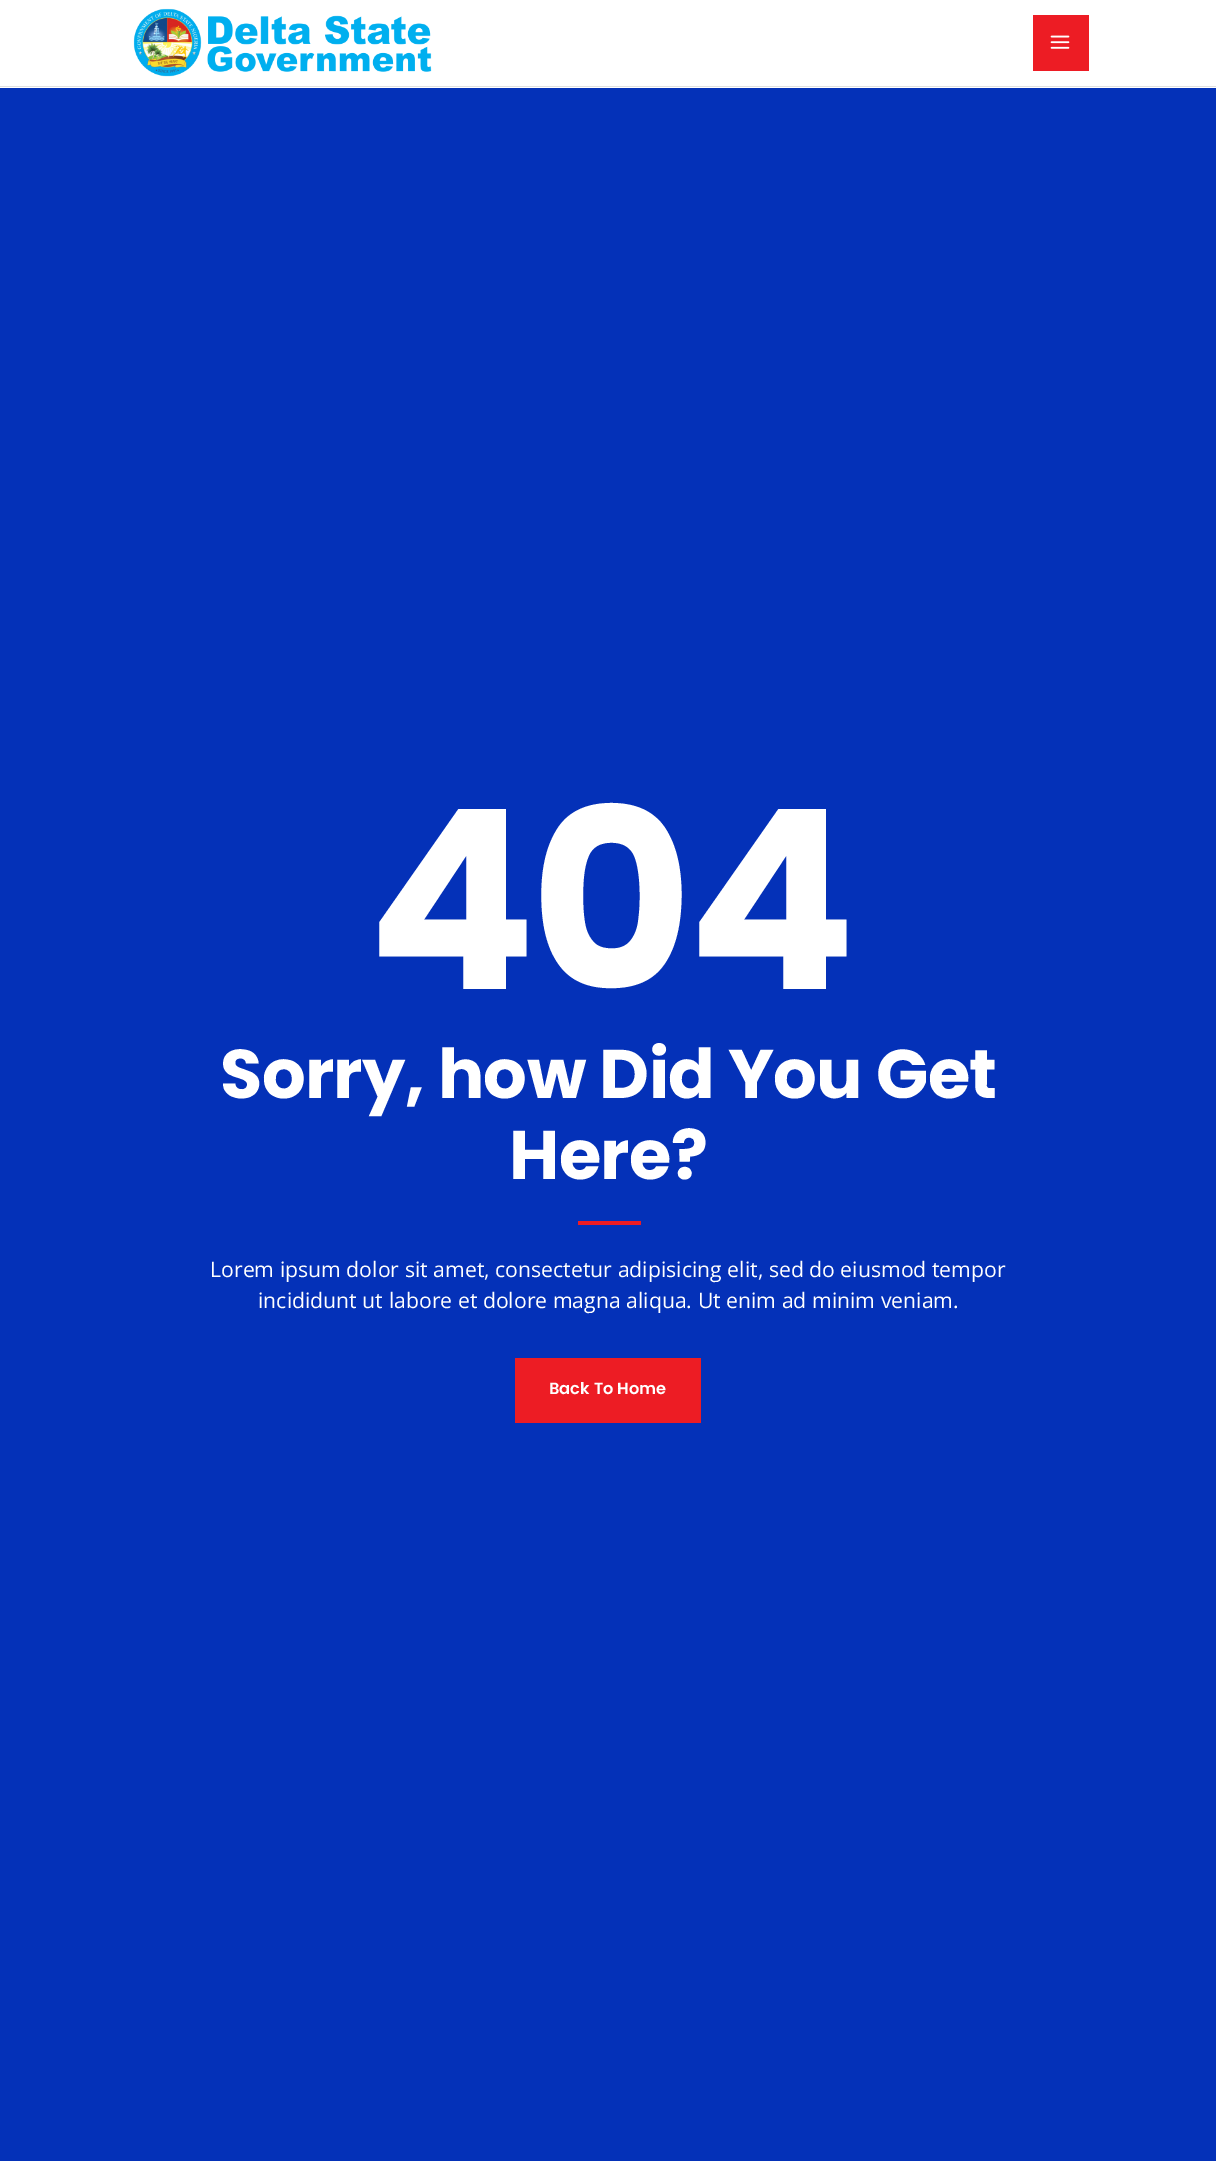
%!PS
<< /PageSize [1216 2161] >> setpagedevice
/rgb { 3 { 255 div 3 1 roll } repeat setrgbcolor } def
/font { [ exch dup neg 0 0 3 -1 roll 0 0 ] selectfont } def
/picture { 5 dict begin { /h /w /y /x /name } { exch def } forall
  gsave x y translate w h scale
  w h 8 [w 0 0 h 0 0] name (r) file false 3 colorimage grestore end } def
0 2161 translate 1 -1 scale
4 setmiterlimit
255 255 255 rgb
0 0 1216 2161 rectfill
224 224 224 rgb
0 86 1216 1 rectfill
(img/1.rgb) 133 8 299 69 picture
237 28 36 rgb
1033 15 56 56 rectfill
(img/2.rgb) 1050 35 20 14 picture
[
  [0 88 1216 2073 4 49 184]
  [578 1221 63 4 237 28 36]
  [515 1358 186 65 237 28 36]
] { aload pop rgb rectfill } forall
/Poppins-Bold 250 font
255 255 255 rgb
367 989 moveto -6 0 (404) ashow
/Poppins-Bold 68.75 font
220 1098 moveto -0.7 0 (Sorry, how Did You Get) ashow
509 1179 moveto -0.7 0 (Here?) ashow
/OpenSans-Regular 21.25 font
210 1277 moveto (Lorem ipsum dolor sit amet, consectetur adipisicing elit, sed do eiusmod tempor) show
258 1308 moveto (incididunt ut labore et dolore magna aliqua. Ut enim ad minim veniam.) show
/Poppins-SemiBold 16.25 font
549 1394 moveto (Back To Home) show
showpage
